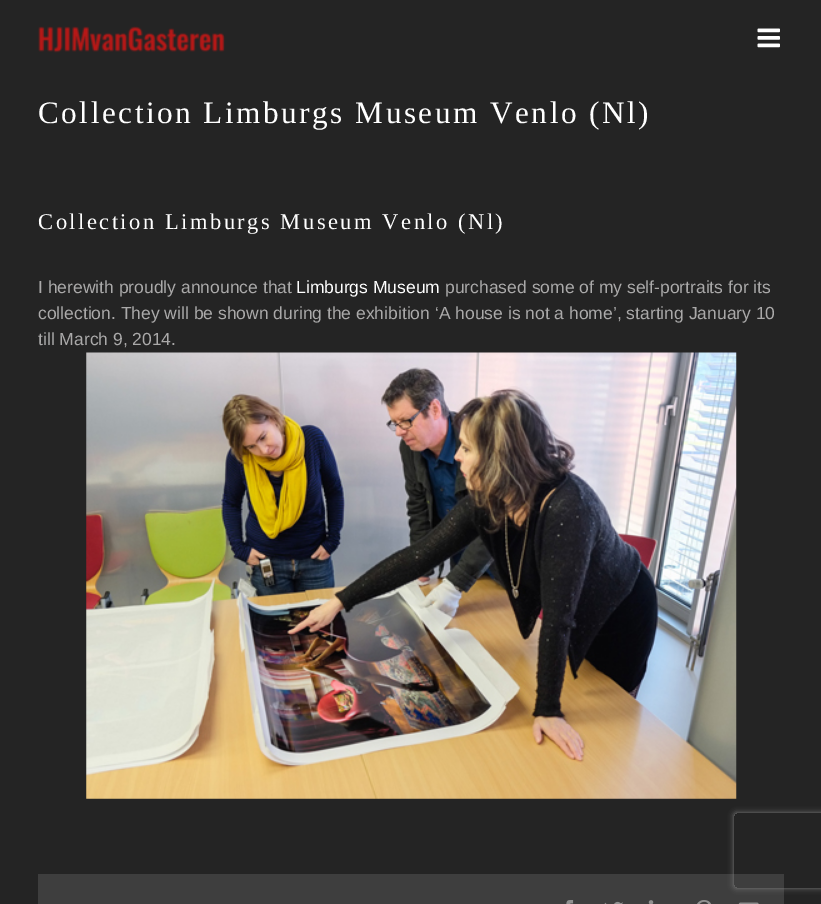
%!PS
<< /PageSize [821 904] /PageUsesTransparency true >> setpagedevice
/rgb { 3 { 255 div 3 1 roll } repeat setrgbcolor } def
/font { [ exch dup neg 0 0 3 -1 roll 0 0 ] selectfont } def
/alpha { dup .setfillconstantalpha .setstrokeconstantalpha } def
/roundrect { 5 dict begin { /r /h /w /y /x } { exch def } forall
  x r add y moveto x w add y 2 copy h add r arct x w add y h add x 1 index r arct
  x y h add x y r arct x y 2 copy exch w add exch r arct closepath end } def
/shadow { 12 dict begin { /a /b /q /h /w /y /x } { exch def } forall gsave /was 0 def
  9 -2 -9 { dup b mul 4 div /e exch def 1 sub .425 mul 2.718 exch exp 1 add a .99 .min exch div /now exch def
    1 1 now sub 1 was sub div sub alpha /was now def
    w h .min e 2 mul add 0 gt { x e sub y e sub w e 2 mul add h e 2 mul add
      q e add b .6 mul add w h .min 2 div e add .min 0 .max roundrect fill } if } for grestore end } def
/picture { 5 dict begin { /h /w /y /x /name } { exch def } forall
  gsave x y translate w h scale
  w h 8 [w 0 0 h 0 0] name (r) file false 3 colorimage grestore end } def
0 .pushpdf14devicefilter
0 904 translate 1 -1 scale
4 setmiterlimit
36 36 36 rgb
0 0 821 904 rectfill
(img/1.rgb) 38 26 187 27 picture
(img/2.rgb) 757 28 23 20 picture
(img/3.rgb) 86 352 651 447 picture
62 62 62 rgb
38 874 746 30 rectfill
(img/4.rgb) 566 900 8 4 picture
(img/5.rgb) 604 901 19 3 picture
(img/6.rgb) 648 900 6 4 picture
(img/7.rgb) 697 900 14 4 picture
(img/8.rgb) 738 902 21 2 picture
gsave
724 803 moveto 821 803 lineto 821 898 lineto 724 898 lineto closepath 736.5 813 moveto 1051.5 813 lineto 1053 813 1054 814 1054 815.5 curveto 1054 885.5 lineto 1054 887 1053 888 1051.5 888 curveto 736.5 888 lineto 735 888 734 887 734 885.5 curveto 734 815.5 lineto 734 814 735 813 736.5 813 curveto closepath eoclip newpath
128 128 128 rgb
734 813 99 75 2.5 3 1 shadow
grestore
/LiberationSerif-Regular 31.25 font
255 255 255 rgb
38 123 moveto 2.5 0 (Collection Limburgs Museum Venlo \(Nl\)) ashow
/LiberationSerif-Regular 22.5 font
38 229 moveto 2.5 0 (Collection Limburgs Museum Venlo \(Nl\)) ashow
/LiberationSans-Regular 17.5 font
170 169 169 rgb
38 293 moveto (I herewith proudly announce that) show
255 255 255 rgb
296 293 moveto (Limburgs Museum) show
170 169 169 rgb
[
  [(purchased some of my self-portraits for its) 445 293]
  [(collection. They will be shown during the exhibition ‘A house is not a home’, starting January 10) 38 319]
  [(till March 9, 2014.) 38 345]
] { aload pop moveto show } forall
.poppdf14devicefilter showpage
